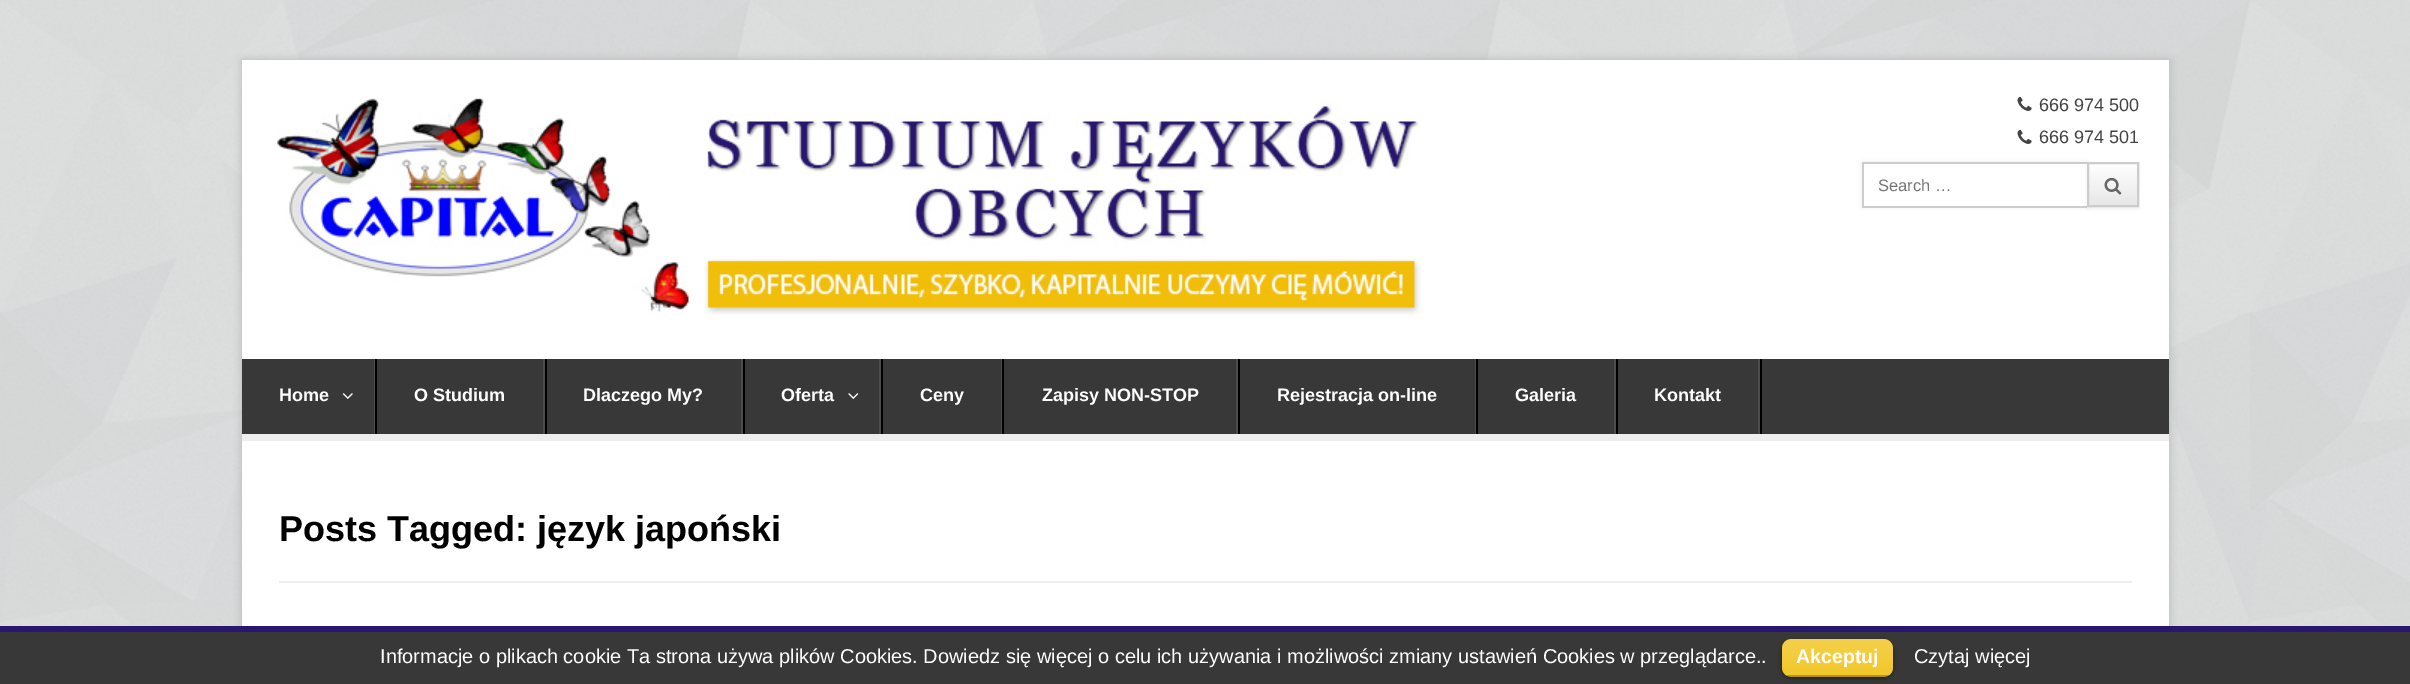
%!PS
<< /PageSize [2410 684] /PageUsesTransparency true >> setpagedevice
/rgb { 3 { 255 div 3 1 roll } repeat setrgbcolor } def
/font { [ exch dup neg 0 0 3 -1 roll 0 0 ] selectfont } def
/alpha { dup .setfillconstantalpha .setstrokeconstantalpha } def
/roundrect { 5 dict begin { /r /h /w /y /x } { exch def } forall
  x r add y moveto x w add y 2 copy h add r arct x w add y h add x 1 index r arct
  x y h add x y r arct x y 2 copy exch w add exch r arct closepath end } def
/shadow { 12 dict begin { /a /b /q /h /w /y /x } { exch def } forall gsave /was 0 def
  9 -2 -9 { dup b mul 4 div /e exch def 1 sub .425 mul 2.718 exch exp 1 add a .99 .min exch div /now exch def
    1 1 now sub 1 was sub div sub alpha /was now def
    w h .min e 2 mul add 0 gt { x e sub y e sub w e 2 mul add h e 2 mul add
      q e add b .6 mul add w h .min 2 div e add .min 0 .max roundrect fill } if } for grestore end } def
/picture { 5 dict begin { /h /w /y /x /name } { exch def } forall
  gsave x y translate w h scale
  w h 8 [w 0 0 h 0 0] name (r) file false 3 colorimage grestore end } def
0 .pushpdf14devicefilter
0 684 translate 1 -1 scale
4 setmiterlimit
255 255 255 rgb
0 0 2410 684 rectfill
(img/1.rgb) 0 0 2410 626 picture
0 0 0 rgb
242 60 1927 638 0 4.5 0.15 shadow
255 255 255 rgb
242 60 1927 566 rectfill
(img/2.rgb) 277 98 1145 217 picture
(img/3.rgb) 2017 96 15 15 picture
(img/3.rgb) 2017 129 15 15 picture
0 0 0 rgb
1862 162 225 45 0 2 0.08 shadow
[
  [1864 164 223 42 255 255 255]
  [1862 162 225 2 204 204 204]
  [1862 206 225 2 204 204 204]
  [1862 162 2 45 204 204 204]
] { aload pop rgb rectfill } forall
0 0 0 rgb
2087 164 52 45 0 1.5 0.05 shadow
gsave 2089 164 moveto 2137 164 lineto 2137 205 lineto 2089 205 lineto closepath clip newpath
<< /ShadingType 2 /ColorSpace /DeviceRGB /Coords [2113 164 2113 206] /Extend [true true] /Function << /FunctionType 2 /Domain [0 1] /C0 [1 1 1] /C1 [0.902 0.902 0.902] /N 1 >> >> shfill grestore
204 204 204 rgb
2 setlinewidth
2088 163 50 43 rectstroke
(img/4.rgb) 2104 177 18 18 picture
[
  [242 359 1927 75 56 56 56]
  [242 434 1927 7 238 238 238]
  [1760 359 2 75 0 0 0]
  [374 359 1 75 76 76 76]
] { aload pop rgb rectfill } forall
(img/5.rgb) 342 393 11 6 picture
[
  [543 359 2 75 76 76 76]
  [375 359 2 75 0 0 0]
  [741 359 2 75 76 76 76]
  [545 359 2 75 0 0 0]
  [879 359 2 75 76 76 76]
  [743 359 2 75 0 0 0]
] { aload pop rgb rectfill } forall
(img/6.rgb) 848 393 11 6 picture
[
  [1001 359 1 75 76 76 76]
  [881 359 2 75 0 0 0]
  [1236 359 2 75 76 76 76]
  [1002 359 2 75 0 0 0]
  [1475 359 1 75 76 76 76]
  [1238 359 2 75 0 0 0]
  [1614 359 2 75 76 76 76]
  [1476 359 2 75 0 0 0]
  [1758 359 2 75 76 76 76]
  [1616 359 2 75 0 0 0]
  [279 581 1853 2 238 238 238]
  [0 632 2410 52 56 56 56]
  [0 626 2410 6 40 22 111]
] { aload pop rgb rectfill } forall
0 0 0 rgb
1782 641 111 37 9 2 0.6 shadow
240 190 9 rgb
1782 639 111 38 9 roundrect fill
(img/7.rgb) 1782 639 111 38 picture
0.25 alpha
0 0 0 rgb
1787 675 102 2 rectfill
/LiberationSans-Regular 18 font
1 alpha
68 68 68 rgb
2039 111 moveto (666 974 500) show
2039 143 moveto (666 974 501) show
/LiberationSans-Regular 16.5 font
117 117 117 rgb
1878 191 moveto (Search …) show
/LiberationSans-Bold 18 font
255 255 255 rgb
[
  [(Home) 279 401]
  [(O Studium) 414 401]
  [(Dlaczego My?) 583 401]
  [(Oferta) 781 401]
  [(Ceny) 920 401]
  [(Zapisy NON-STOP) 1042 401]
  [(Rejestracja on-line) 1277 401]
  [(Galeria) 1515 401]
  [(Kontakt) 1654 401]
] { aload pop moveto show } forall
/LiberationSans-Bold 36 font
0 0 0 rgb
279 541 moveto (Posts Tagged: język japoński) show
/LiberationSans-Regular 20 font
255 255 255 rgb
380 663 moveto (Informacje o plikach cookie Ta strona używa plików Cookies. Dowiedz się więcej o celu ich używania i możliwości zmiany ustawień Cookies w przeglądarce..) show
/LiberationSans-Bold 19.5 font
1796 663 moveto (Akceptuj) show
/LiberationSans-Regular 20 font
1914 663 moveto (Czytaj więcej) show
.poppdf14devicefilter showpage
